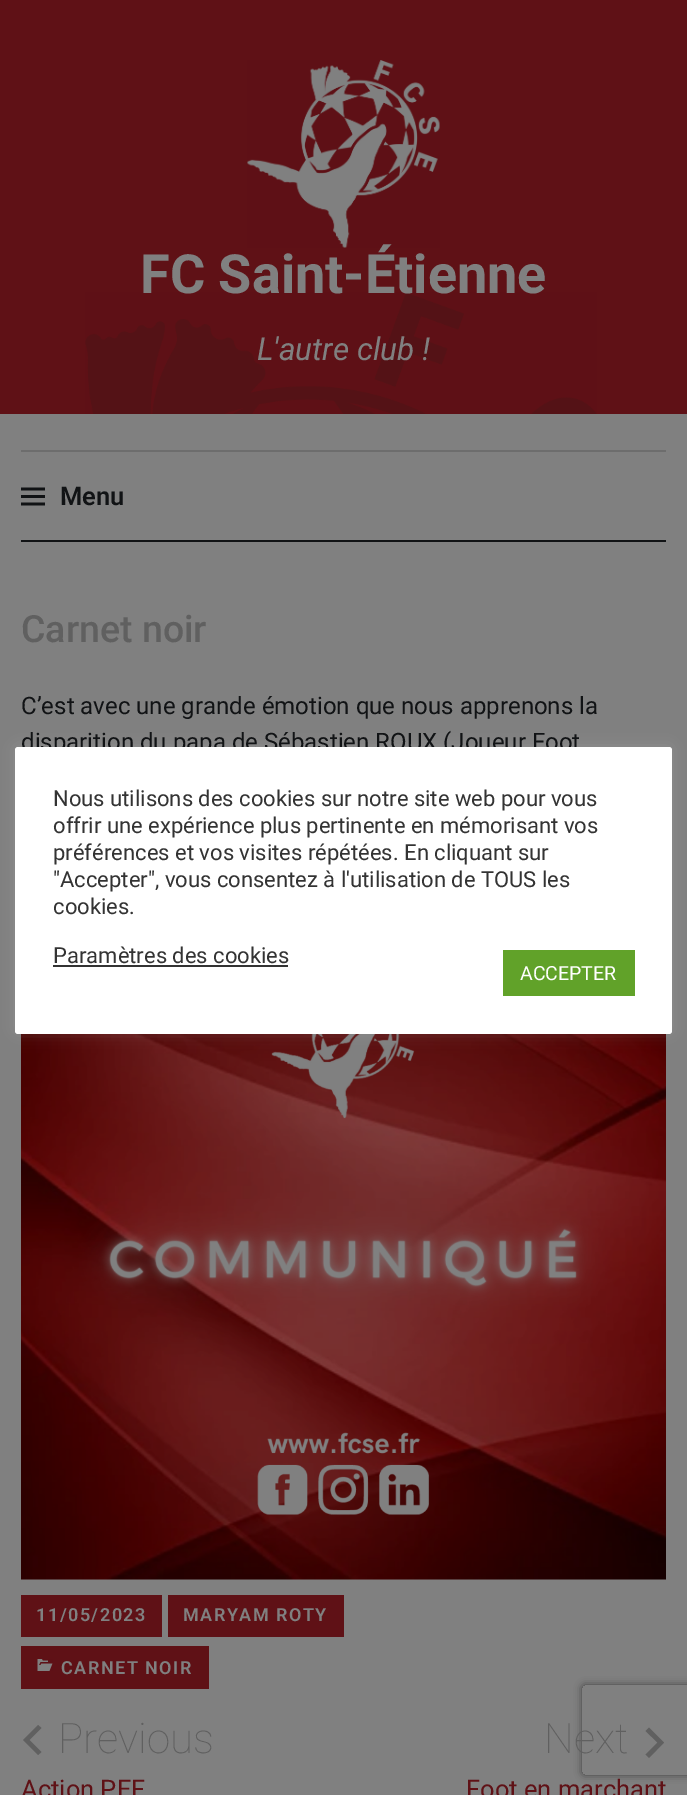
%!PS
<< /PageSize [687 1795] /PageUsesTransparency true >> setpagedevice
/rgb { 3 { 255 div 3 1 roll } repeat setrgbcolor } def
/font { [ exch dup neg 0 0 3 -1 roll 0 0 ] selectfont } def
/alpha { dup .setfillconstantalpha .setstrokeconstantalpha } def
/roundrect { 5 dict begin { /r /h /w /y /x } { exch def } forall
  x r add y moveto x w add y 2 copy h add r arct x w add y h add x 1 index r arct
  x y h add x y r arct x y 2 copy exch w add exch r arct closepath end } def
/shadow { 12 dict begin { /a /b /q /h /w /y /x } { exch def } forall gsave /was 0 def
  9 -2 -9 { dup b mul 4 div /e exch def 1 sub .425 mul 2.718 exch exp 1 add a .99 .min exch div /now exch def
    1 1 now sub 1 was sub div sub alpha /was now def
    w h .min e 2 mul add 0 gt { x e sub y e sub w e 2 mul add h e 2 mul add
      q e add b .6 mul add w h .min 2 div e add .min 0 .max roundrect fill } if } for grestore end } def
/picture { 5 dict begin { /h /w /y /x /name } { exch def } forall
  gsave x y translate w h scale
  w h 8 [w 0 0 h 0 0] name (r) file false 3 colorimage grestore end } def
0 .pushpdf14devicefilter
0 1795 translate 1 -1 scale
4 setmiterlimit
95 17 22 rgb
0 0 687 1795 rectfill
(img/1.rgb) 247 60 193 188 picture
(img/2.rgb) 85 292 512 122 picture
[
  [0 414 687 1381 128 128 128]
  [21 450 645 2 109 109 109]
  [21 540 645 2 17 19 21]
] { aload pop rgb rectfill } forall
(img/3.rgb) 21 487 24 19 picture
(img/4.rgb) 21 1034 645 546 picture
[
  [21 1595 141 42 95 17 22]
  [168 1595 176 42 95 17 22]
  [21 1646 188 43 95 17 22]
] { aload pop rgb rectfill } forall
(img/5.rgb) 37 1659 16 12 picture
96 96 96 rgb
38 1725 moveto 41.5 1728 lineto 29.5 1740 lineto 41.5 1752 lineto 38 1755 lineto 23 1740 lineto closepath fill
649 1758 moveto 645.5 1754.5 lineto 657.5 1742.5 lineto 645.5 1731 lineto 649 1727.5 lineto 664 1742.5 lineto closepath fill
172 171 171 rgb
15 746 657 286 3 7.5 0.3 shadow
gsave
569 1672 moveto 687 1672 lineto 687 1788 lineto 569 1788 lineto closepath 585 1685 moveto 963 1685 lineto 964.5 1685 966 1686.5 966 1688 curveto 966 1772 lineto 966 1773.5 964.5 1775 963 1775 curveto 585 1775 lineto 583.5 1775 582 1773.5 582 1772 curveto 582 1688 lineto 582 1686.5 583.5 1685 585 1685 curveto closepath eoclip newpath
64 64 64 rgb
582 1685 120 90 3 4 1 shadow
grestore
/Roboto-Bold 54 font
128 128 128 rgb
140 293 moveto (FC Saint-Étienne) show
/Roboto-Italic 31.5 font
257 360 moveto (L'autre club !) show
/Roboto-SemiBold 25.5 font
17 19 21 rgb
60 505 moveto (Menu) show
/Roboto-Medium 37.5 font
96 96 96 rgb
21 642 moveto (Carnet noir) show
/Roboto-Regular 24 font
17 19 21 rgb
21 714 moveto (C’est avec une grande émotion que nous apprenons la) show
21 750 moveto (disparition du papa de Sébastien ROUX \(Joueur Foot) show
/Roboto-SemiBold 18 font
128 128 128 rgb
36 1621 moveto 1.5 0 (11/05/2023) ashow
183 1621 moveto 1.5 0 (MARYAM ROTY) ashow
61 1674 moveto 1.5 0 (CARNET NOIR) ashow
/Roboto-Thin 42 font
96 96 96 rgb
58 1753 moveto (Previous) show
/Roboto-Regular 25.5 font
95 17 22 rgb
21 1798 moveto (Action PEF) show
/Roboto-Thin 42 font
96 96 96 rgb
544 1753 moveto (Next) show
/Roboto-Regular 25.5 font
95 17 22 rgb
466 1798 moveto (Foot en marchant) show
255 255 255 rgb
15 747 657 287 3 roundrect fill
/Roboto-Regular 22 font
51 51 51 rgb
[
  [(Nous utilisons des cookies sur notre site web pour vous) 53 806]
  [(offrir une expérience plus pertinente en mémorisant vos) 53 833]
  [(préférences et vos visites répétées. En cliquant sur) 53 860]
  [("Accepter", vous consentez à l'utilisation de TOUS les) 53 887]
  [(cookies.) 53 914]
  [(Paramètres des cookies) 53 963]
] { aload pop moveto show } forall
53 965 235 2 rectfill
97 162 41 rgb
503 950 132 46 rectfill
/Roboto-Regular 19.5 font
255 255 255 rgb
520 980 moveto (ACCEPTER) show
.poppdf14devicefilter showpage
